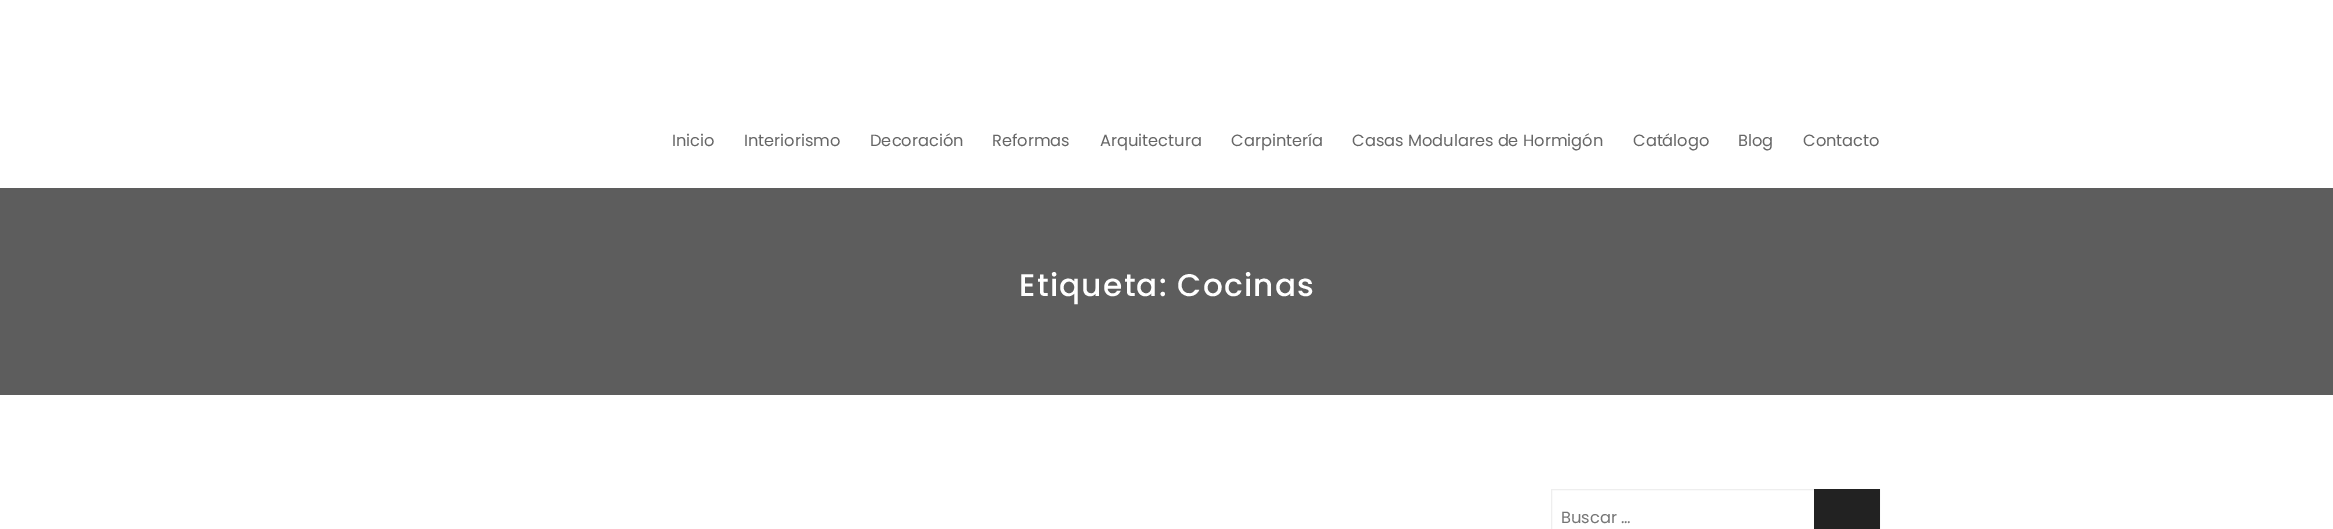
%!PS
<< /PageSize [2333 529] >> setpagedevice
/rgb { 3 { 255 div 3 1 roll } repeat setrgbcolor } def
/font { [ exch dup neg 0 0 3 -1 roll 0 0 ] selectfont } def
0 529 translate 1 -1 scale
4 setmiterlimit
255 255 255 rgb
0 0 2333 529 rectfill
93 93 93 rgb
0 188 2333 207 rectfill
238 238 238 rgb
1551.5 489.5 328 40 rectstroke
34 34 34 rgb
1814 489 66 40 rectfill
/Poppins-Regular 16.25 font
102 102 102 rgb
[
  [(Inicio) 672 146]
  [(Interiorismo) 744 146]
  [(Decoración) 870 146]
  [(Reformas) 992 146]
  [(Arquitectura) 1100 146]
  [(Carpintería) 1231 146]
  [(Casas Modulares de Hormigón) 1352 146]
  [(Catálogo) 1633 146]
  [(Blog) 1738 146]
  [(Contacto) 1803 146]
] { aload pop moveto show } forall
/Poppins-Medium 31.25 font
255 255 255 rgb
1019 296 moveto 1.25 0 (Etiqueta: Cocinas) ashow
/Poppins-Regular 16.25 font
117 117 117 rgb
1561 523 moveto (Buscar …) show
showpage
